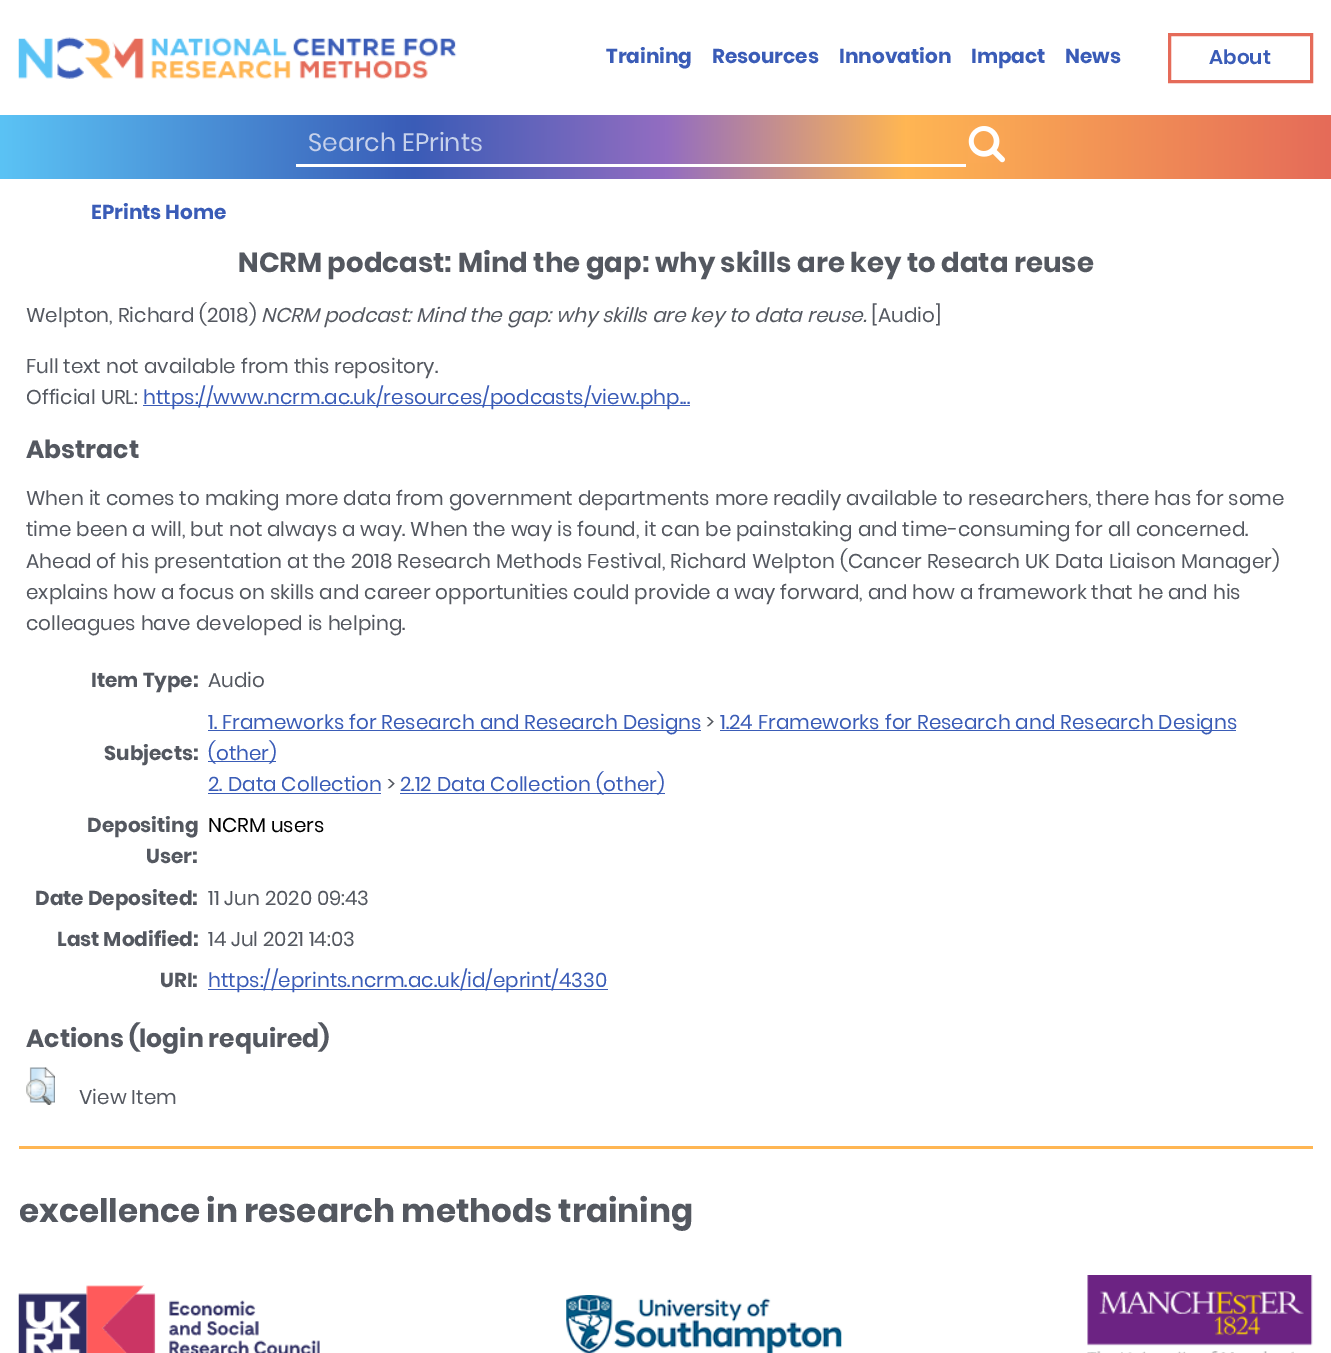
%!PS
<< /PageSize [1331 1353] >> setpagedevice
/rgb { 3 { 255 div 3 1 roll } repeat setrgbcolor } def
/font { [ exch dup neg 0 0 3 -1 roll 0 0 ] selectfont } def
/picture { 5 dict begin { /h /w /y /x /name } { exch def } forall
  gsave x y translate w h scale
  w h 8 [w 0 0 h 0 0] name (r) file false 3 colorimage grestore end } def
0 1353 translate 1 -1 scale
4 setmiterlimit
255 255 255 rgb
0 0 1331 1353 rectfill
(img/1.rgb) 18 37 439 42 picture
229 107 89 rgb
3 setlinewidth
1169.5 34.5 142 47 rectstroke
gsave 0 115 moveto 1331 115 lineto 1331 179 lineto 0 179 lineto closepath clip newpath
<< /ShadingType 2 /ColorSpace /DeviceRGB /Coords [0 147 1331 147] /Extend [true true] /Function << /FunctionType 3 /Domain [0 1] /Functions [<< /FunctionType 2 /Domain [0 1] /C0 [0.357 0.765 0.961] /C1 [0.227 0.361 0.718] /N 1 >> << /FunctionType 2 /Domain [0 1] /C0 [0.227 0.361 0.718] /C1 [0.576 0.427 0.757] /N 1 >> << /FunctionType 2 /Domain [0 1] /C0 [0.576 0.427 0.757] /C1 [1 0.714 0.325] /N 1 >> << /FunctionType 2 /Domain [0 1] /C0 [1 0.714 0.325] /C1 [0.898 0.42 0.349] /N 1 >>] /Bounds [0.31 0.5 0.68] /Encode [0 1 0 1 0 1 0 1] >> >> shfill grestore
255 255 255 rgb
296 164 670 3 rectfill
(img/2.rgb) 968 126 37 37 picture
[
  [143 405 547 1 58 92 183]
  [208 730 493 1 58 92 183]
  [720 730 516 1 58 92 183]
  [208 761 68 1 58 92 183]
  [208 793 173 1 58 92 183]
  [400 793 265 1 58 92 183]
  [208 989 400 1 58 92 183]
] { aload pop rgb rectfill } forall
(img/3.rgb) 26 1067 29 38 picture
255 182 83 rgb
19 1146 1294 3 rectfill
(img/4.rgb) 18 1285 302 68 picture
(img/5.rgb) 566 1295 276 58 picture
(img/6.rgb) 1087 1275 226 78 picture
/Poppins-Bold 20 font
58 92 183 rgb
[
  [(Training) 606 63]
  [(Resources) 712 63]
  [(Innovation) 839 63]
  [(Impact) 971 63]
  [(News) 1065 63]
] { aload pop moveto show } forall
/Poppins-SemiBold 20 font
1209 64 moveto (About) show
/Poppins-Regular 25 font
198 209 235 rgb
308 151 moveto (Search EPrints) show
/Poppins-Bold 20 font
58 92 183 rgb
91 219 moveto (EPrints Home) show
/Poppins-Bold 27.5 font
84 88 96 rgb
238 272 moveto (NCRM podcast: Mind the gap: why skills are key to data reuse) show
/Poppins-Regular 20 font
26 322 moveto (Welpton, Richard \(2018\)) show
/Poppins-Italic 20 font
261 322 moveto (NCRM podcast: Mind the gap: why skills are key to data reuse.) show
/Poppins-Regular 20 font
[
  [([Audio]) 871 322]
  [(Full text not available from this repository.) 26 373]
  [(Official URL:) 26 404]
] { aload pop moveto show } forall
58 92 183 rgb
143 404 moveto (https://www.ncrm.ac.uk/resources/podcasts/view.php...) show
/Poppins-Bold 25 font
84 88 96 rgb
26 458 moveto (Abstract) show
/Poppins-Regular 20 font
[
  [(When it comes to making more data from government departments more readily available to researchers, there has for some) 26 505]
  [(time been a will, but not always a way. When the way is found, it can be painstaking and time-consuming for all concerned.) 26 536]
  [(Ahead of his presentation at the 2018 Research Methods Festival, Richard Welpton \(Cancer Research UK Data Liaison Manager\)) 26 568]
  [(explains how a focus on skills and career opportunities could provide a way forward, and how a framework that he and his) 26 599]
  [(colleagues have developed is helping.) 26 630]
] { aload pop moveto show } forall
/Poppins-Bold 20 font
91 687 moveto (Item Type:) show
/Poppins-Regular 20 font
208 687 moveto (Audio) show
/Poppins-Bold 20 font
104 760 moveto (Subjects:) show
/Poppins-Regular 20 font
58 92 183 rgb
208 729 moveto (1. Frameworks for Research and Research Designs) show
84 88 96 rgb
706 729 moveto (>) show
58 92 183 rgb
[
  [(1.24 Frameworks for Research and Research Designs) 720 729]
  [(\(other\)) 208 760]
  [(2. Data Collection) 208 791]
] { aload pop moveto show } forall
84 88 96 rgb
387 791 moveto (>) show
58 92 183 rgb
400 791 moveto (2.12 Data Collection \(other\)) show
/Poppins-Bold 20 font
84 88 96 rgb
87 832 moveto (Depositing) show
146 863 moveto (User:) show
/Poppins-Regular 20 font
0 0 0 rgb
208 832 moveto (NCRM users) show
/Poppins-Bold 20 font
84 88 96 rgb
35 905 moveto (Date Deposited:) show
/Poppins-Regular 20 font
208 905 moveto (11 Jun 2020 09:43) show
/Poppins-Bold 20 font
57 946 moveto (Last Modified:) show
/Poppins-Regular 20 font
208 946 moveto (14 Jul 2021 14:03) show
/Poppins-Bold 20 font
160 987 moveto (URI:) show
/Poppins-Regular 20 font
58 92 183 rgb
208 987 moveto (https://eprints.ncrm.ac.uk/id/eprint/4330) show
/Poppins-Bold 25 font
84 88 96 rgb
26 1047 moveto (Actions \(login required\)) show
/Poppins-Regular 20 font
79 1104 moveto (View Item) show
/Poppins-Bold 32.5 font
19 1222 moveto (excellence in research methods training) show
showpage
